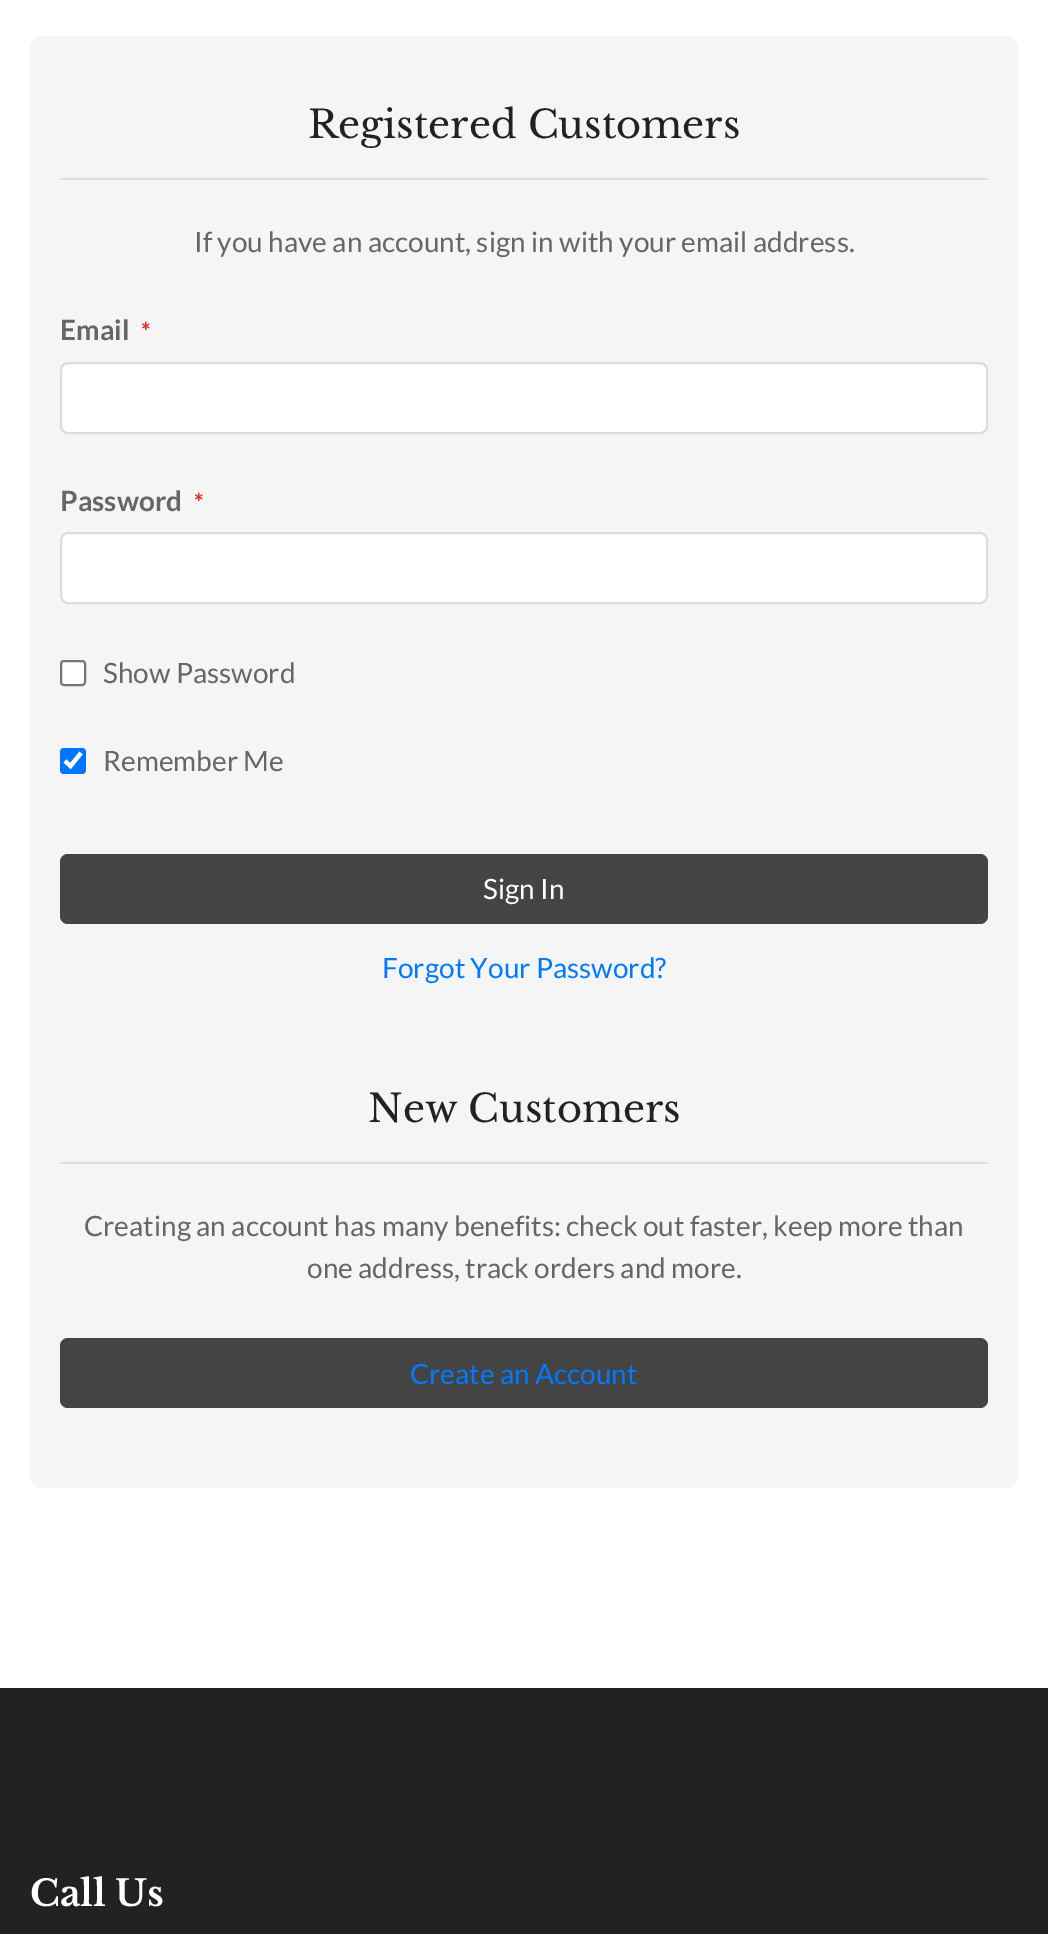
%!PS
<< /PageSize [1048 1934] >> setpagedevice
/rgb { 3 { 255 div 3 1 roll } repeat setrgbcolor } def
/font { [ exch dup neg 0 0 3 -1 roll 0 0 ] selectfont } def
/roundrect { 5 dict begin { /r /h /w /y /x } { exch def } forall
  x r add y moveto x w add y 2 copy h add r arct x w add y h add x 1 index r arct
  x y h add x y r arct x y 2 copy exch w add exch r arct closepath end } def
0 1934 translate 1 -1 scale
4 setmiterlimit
255 255 255 rgb
0 0 1048 1934 rectfill
245 245 245 rgb
30 36 988 1452 12 roundrect fill
221 221 221 rgb
60 178 928 2 rectfill
255 255 255 rgb
61 363 926 70 7 roundrect gsave fill grestore
221 221 221 rgb
2 setlinewidth
stroke
255 255 255 rgb
61 533 926 70 7 roundrect gsave fill grestore
221 221 221 rgb
stroke
255 255 255 rgb
61 661 24 24 3 roundrect gsave fill grestore
118 118 118 rgb
stroke
0 117 255 rgb
60 748 26 26 4 roundrect fill
255 255 255 rgb
4.2 setlinewidth
65 761 moveto 70.5 766 lineto 81 753 lineto stroke
68 68 68 rgb
60 854 928 70 8 roundrect fill
221 221 221 rgb
60 1162 928 2 rectfill
68 68 68 rgb
60 1338 928 70 8 roundrect fill
34 34 34 rgb
0 1688 1048 246 rectfill
/LibreBaskerville-Regular 38.4 font
308 138 moveto (Registered Customers) show
/Lato-Regular 28 font
102 102 102 rgb
194 252 moveto (If you have an account, sign in with your email address.) show
/Lato-Bold 28 font
60 340 moveto (Email) show
/Lato-Bold 24 font
224 43 39 rgb
141 340 moveto (*) show
/Lato-Bold 28 font
102 102 102 rgb
60 511 moveto (Password) show
/Lato-Bold 24 font
224 43 39 rgb
194 511 moveto (*) show
/Lato-Regular 28 font
102 102 102 rgb
103 683 moveto (Show Password) show
103 771 moveto (Remember Me) show
255 255 255 rgb
483 899 moveto (Sign In) show
0 123 255 rgb
382 978 moveto (Forgot Your Password?) show
/LibreBaskerville-Regular 38.4 font
34 34 34 rgb
368 1122 moveto (New Customers) show
/Lato-Regular 28 font
102 102 102 rgb
84 1236 moveto (Creating an account has many benefits: check out faster, keep more than) show
307 1278 moveto (one address, track orders and more.) show
0 123 255 rgb
410 1384 moveto (Create an Account) show
/LibreBaskerville-Bold 36 font
255 255 255 rgb
30 1906 moveto (Call Us) show
showpage
